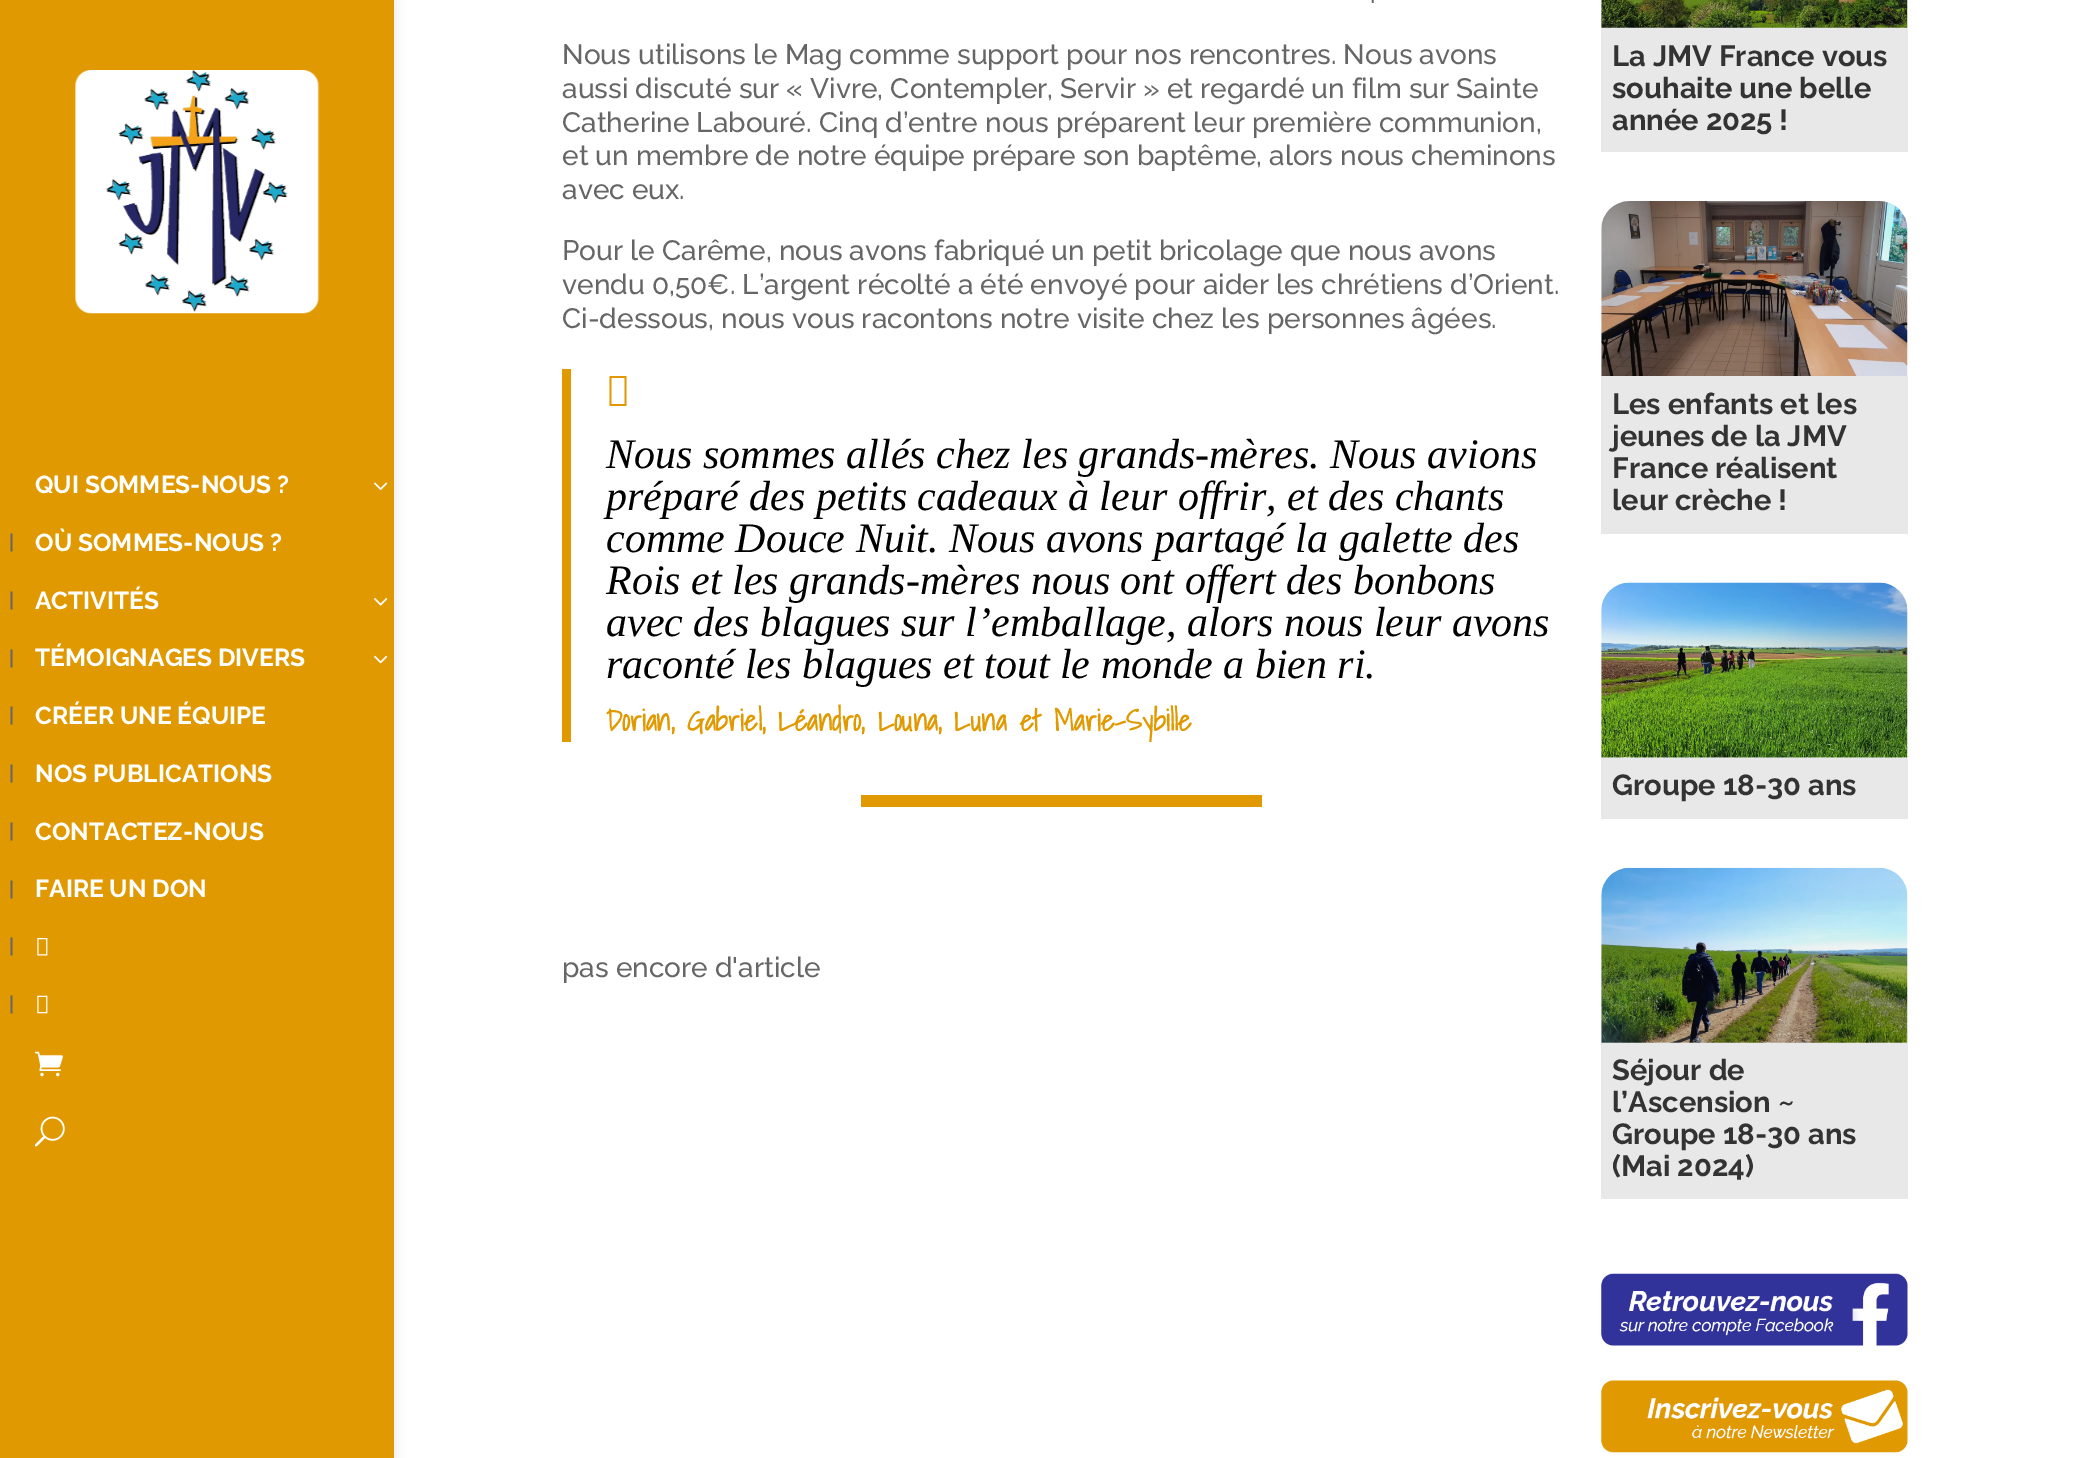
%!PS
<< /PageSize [2075 1458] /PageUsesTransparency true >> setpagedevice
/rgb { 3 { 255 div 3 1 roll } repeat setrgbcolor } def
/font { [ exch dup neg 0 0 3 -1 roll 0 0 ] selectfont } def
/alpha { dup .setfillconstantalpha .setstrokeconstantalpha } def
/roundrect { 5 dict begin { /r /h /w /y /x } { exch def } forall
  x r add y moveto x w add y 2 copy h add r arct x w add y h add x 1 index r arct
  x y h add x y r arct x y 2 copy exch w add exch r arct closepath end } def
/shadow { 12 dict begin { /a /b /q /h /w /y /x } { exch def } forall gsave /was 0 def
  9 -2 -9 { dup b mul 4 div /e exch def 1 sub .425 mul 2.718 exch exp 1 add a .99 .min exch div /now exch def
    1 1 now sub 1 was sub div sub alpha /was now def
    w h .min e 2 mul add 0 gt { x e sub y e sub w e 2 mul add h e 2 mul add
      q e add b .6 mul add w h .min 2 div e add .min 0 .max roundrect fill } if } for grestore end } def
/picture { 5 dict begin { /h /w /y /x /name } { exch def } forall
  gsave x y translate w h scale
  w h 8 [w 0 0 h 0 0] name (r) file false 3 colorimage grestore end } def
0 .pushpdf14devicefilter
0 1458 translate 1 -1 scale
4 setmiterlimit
255 255 255 rgb
0 0 2075 1458 rectfill
0 0 0 rgb
0 0 394 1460 0 6 0.1 shadow
224 153 0 rgb
0 0 394 1458 rectfill
(img/1.rgb) 75 70 245 244 picture
(img/2.rgb) 374 482 14 8 picture
(img/3.rgb) 374 598 14 8 picture
(img/4.rgb) 374 655 14 9 picture
(img/5.rgb) 37 938 11 18 picture
(img/6.rgb) 37 995 11 19 picture
(img/7.rgb) 35 1051 28 26 picture
(img/8.rgb) 34 1116 31 31 picture
562 369 9 373 rectfill
609.5 406 moveto 609.5 376 lineto 626.5 376 lineto 626.5 406 lineto closepath 611.5 404 moveto 624.5 404 lineto 624.5 378 lineto 611.5 378 lineto closepath fill
861 795 401 12 rectfill
(img/9.rgb) 1601 0 307 28 picture
232 232 232 rgb
1601 28 307 124 rectfill
(img/10.rgb) 1601 201 307 175 picture
1601 376 307 158 rectfill
(img/11.rgb) 1601 582 307 176 picture
1601 758 307 61 rectfill
(img/12.rgb) 1601 867 307 176 picture
1601 1043 307 156 rectfill
(img/13.rgb) 1601 1273 307 73 picture
(img/14.rgb) 1601 1380 307 73 picture
/Raleway-Bold 24.5 font
255 255 255 rgb
35 493 moveto (QUI SOMMES-NOUS ?) show
/Raleway-SemiBold 20 font
102 102 102 rgb
9 549 moveto (|) show
/Raleway-Bold 24.5 font
255 255 255 rgb
35 551 moveto (OÙ SOMMES-NOUS ?) show
/Raleway-SemiBold 20 font
102 102 102 rgb
9 607 moveto (|) show
/Raleway-Bold 24.5 font
255 255 255 rgb
35 609 moveto (ACTIVITÉS) show
/Raleway-SemiBold 20 font
102 102 102 rgb
9 665 moveto (|) show
/Raleway-Bold 24.5 font
255 255 255 rgb
35 666 moveto (TÉMOIGNAGES DIVERS) show
/Raleway-SemiBold 20 font
102 102 102 rgb
9 722 moveto (|) show
/Raleway-Bold 24.5 font
255 255 255 rgb
35 724 moveto (CRÉER UNE ÉQUIPE) show
/Raleway-SemiBold 20 font
102 102 102 rgb
9 780 moveto (|) show
/Raleway-Bold 24.5 font
255 255 255 rgb
35 782 moveto (NOS PUBLICATIONS) show
/Raleway-SemiBold 20 font
102 102 102 rgb
9 838 moveto (|) show
/Raleway-Bold 24.5 font
255 255 255 rgb
35 840 moveto (CONTACTEZ-NOUS) show
/Raleway-SemiBold 20 font
102 102 102 rgb
9 896 moveto (|) show
/Raleway-Bold 24.5 font
255 255 255 rgb
35 897 moveto (FAIRE UN DON) show
/Raleway-SemiBold 20 font
102 102 102 rgb
9 953 moveto (|) show
9 1011 moveto (|) show
/Raleway-Medium 28 font
[
  [(.) 1370 3]
  [(Nous utilisons le Mag comme support pour nos rencontres. Nous avons) 562 64]
  [(aussi discuté sur « Vivre, Contempler, Servir » et regardé un film sur Sainte) 562 98]
  [(Catherine Labouré. Cinq d’entre nous préparent leur première communion,) 562 132]
  [(et un membre de notre équipe prépare son baptême, alors nous cheminons) 562 165]
  [(avec eux.) 562 199]
  [(Pour le Carême, nous avons fabriqué un petit bricolage que nous avons) 562 260]
  [(vendu 0,50€. L’argent récolté a été envoyé pour aider les chrétiens d’Orient.) 562 294]
  [(Ci-dessous, nous vous racontons notre visite chez les personnes âgées.) 562 328]
] { aload pop moveto show } forall
/LiberationSerif-Italic 42 font
0 0 0 rgb
[
  [(Nous sommes allés chez les grands-mères. Nous avions) 606 468]
  [(préparé des petits cadeaux à leur offrir, et des chants) 606 510]
  [(comme Douce Nuit. Nous avons partagé la galette des) 606 552]
  [(Rois et les grands-mères nous ont offert des bonbons) 606 594]
  [(avec des blagues sur l’emballage, alors nous leur avons) 606 636]
  [(raconté les blagues et tout le monde a bien ri.) 606 678]
] { aload pop moveto show } forall
/ShadowsIntoLight-Bold 29.4 font
224 153 0 rgb
606 731 moveto (Dorian, Gabriel, Léandro, Louna, Luna et Marie-Sybille) show
/Raleway-Medium 28 font
102 102 102 rgb
562 977 moveto (pas encore d'article) show
/Raleway-Bold 29.1 font
51 51 51 rgb
[
  [(La JMV France vous) 1612 66]
  [(souhaite une belle) 1612 98]
  [(année 2025 !) 1612 130]
  [(Les enfants et les) 1612 414]
  [(jeunes de la JMV) 1612 446]
  [(France réalisent) 1612 478]
  [(leur crèche !) 1612 510]
  [(Groupe 18-30 ans) 1612 795]
  [(Séjour de) 1612 1080]
  [(l’Ascension ~) 1612 1112]
  [(Groupe 18-30 ans) 1612 1144]
  [(\(Mai 2024\)) 1612 1176]
] { aload pop moveto show } forall
.poppdf14devicefilter showpage
